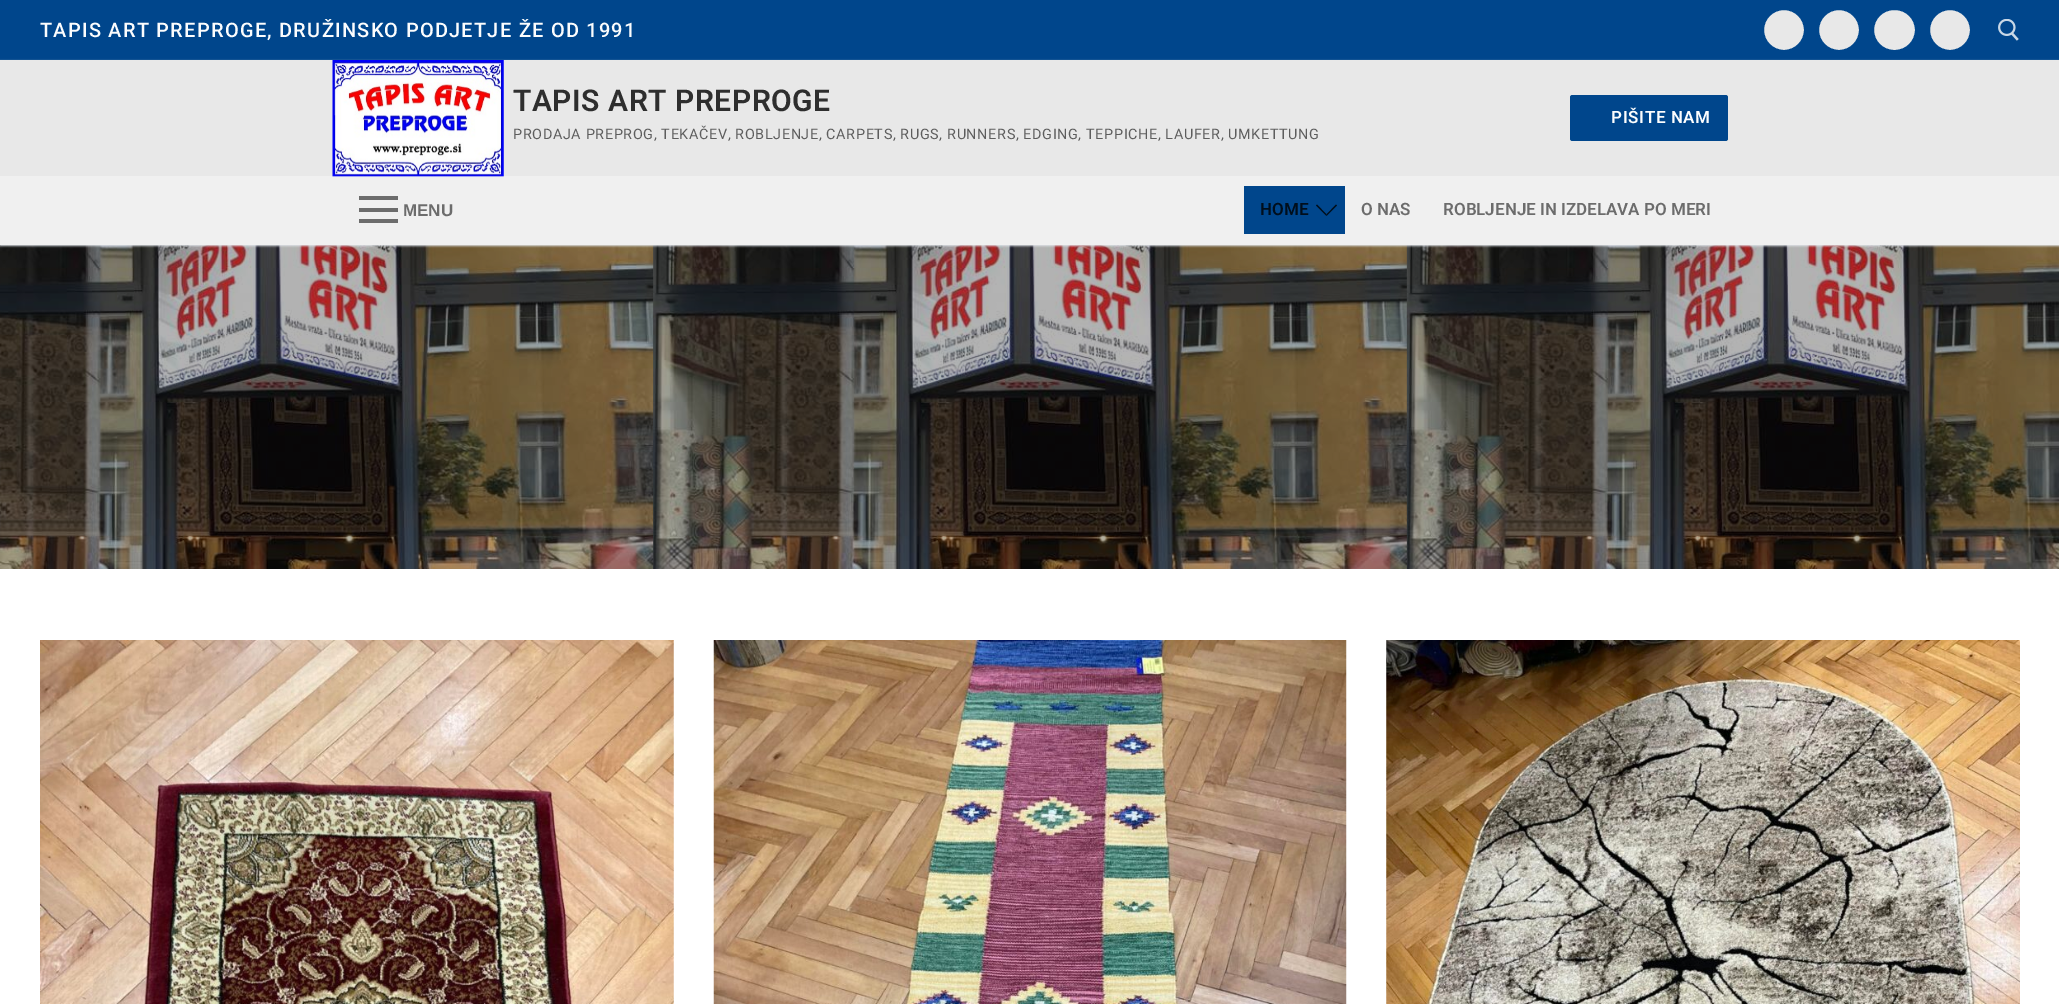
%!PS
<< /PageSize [2059 1004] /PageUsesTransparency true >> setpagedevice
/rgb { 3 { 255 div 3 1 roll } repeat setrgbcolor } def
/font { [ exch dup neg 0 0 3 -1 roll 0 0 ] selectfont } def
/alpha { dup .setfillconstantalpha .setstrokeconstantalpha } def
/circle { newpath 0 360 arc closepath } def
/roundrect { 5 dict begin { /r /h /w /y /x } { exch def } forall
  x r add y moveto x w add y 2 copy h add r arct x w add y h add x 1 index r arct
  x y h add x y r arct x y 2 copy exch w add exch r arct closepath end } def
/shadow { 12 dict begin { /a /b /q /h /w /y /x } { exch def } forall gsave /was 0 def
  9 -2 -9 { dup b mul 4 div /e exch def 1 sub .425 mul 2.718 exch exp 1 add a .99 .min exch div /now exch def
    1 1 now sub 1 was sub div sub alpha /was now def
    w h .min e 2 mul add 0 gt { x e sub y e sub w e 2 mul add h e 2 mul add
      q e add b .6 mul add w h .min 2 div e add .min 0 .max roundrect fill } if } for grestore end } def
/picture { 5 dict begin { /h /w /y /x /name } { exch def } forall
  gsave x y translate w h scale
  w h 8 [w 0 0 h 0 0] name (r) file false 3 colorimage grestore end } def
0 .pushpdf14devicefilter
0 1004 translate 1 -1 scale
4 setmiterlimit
255 255 255 rgb
0 0 2059 1004 rectfill
0 70 140 rgb
0 0 2059 60 rectfill
232 232 232 rgb
1784 30 22 circle gsave fill grestore
0 70 140 rgb
4 setlinewidth
stroke
232 232 232 rgb
1839 30 22 circle gsave fill grestore
0 70 140 rgb
stroke
232 232 232 rgb
1872 8 45 44 22 roundrect gsave fill grestore
0 70 140 rgb
stroke
232 232 232 rgb
1950 30 22 circle gsave fill grestore
0 70 140 rgb
stroke
(img/1.rgb) 1998 19 21 22 picture
225 229 234 rgb
0 61 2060 117 0 1 1 shadow
232 232 232 rgb
0 60 2059 116 rectfill
(img/3.rgb) 0 245 2059 324 picture
225 229 234 rgb
0 178 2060 68 0 1 1 shadow
240 240 240 rgb
0 176 2059 69 rectfill
(img/2.rgb) 332 60 172 117 picture
0 70 140 rgb
1570 95 158 46 2.5 roundrect fill
[
  [359 208 39 4 108 108 108]
  [359 196 39 4 108 108 108]
  [359 219 39 4 108 108 108]
  [1244 186 101 48 0 70 140]
] { aload pop rgb rectfill } forall
0 14 28 rgb
1326.5 216 moveto 1316 205.5 lineto 1317 204.5 lineto 1326.5 214.5 lineto closepath fill
1337 205.5 moveto 1326.5 216 lineto 1326.5 214.5 lineto 1336 204.5 lineto closepath fill
(img/4.rgb) 40 640 634 364 picture
(img/5.rgb) 713 640 634 364 picture
(img/6.rgb) 1386 640 634 364 picture
/Roboto-Medium 20 font
252 253 254 rgb
40 37 moveto 1.25 0 (TAPIS ART PREPROGE, DRUŽINSKO PODJETJE ŽE OD 1991) ashow
/Roboto-SemiBold 30 font
46 46 46 rgb
513 111 moveto 0.5 0 (TAPIS ART PREPROGE) ashow
/Roboto-Regular 14.4 font
93 93 93 rgb
513 139 moveto 0.62 0 (PRODAJA PREPROG, TEKAČEV, ROBLJENJE, CARPETS, RUGS, RUNNERS, EDGING, TEPPICHE, LAUFER, UMKETTUNG) ashow
/Roboto-SemiBold 17 font
252 253 254 rgb
1611 123 moveto 0.62 0 (PIŠITE NAM) ashow
/LiberationSans-Bold 17 font
108 108 108 rgb
403 216 moveto (MENU) show
/Roboto-SemiBold 17 font
0 14 28 rgb
1260 215 moveto (HOME) show
108 108 108 rgb
1361 215 moveto (O NAS) show
1443 215 moveto (ROBLJENJE IN IZDELAVA PO MERI) show
.poppdf14devicefilter showpage
